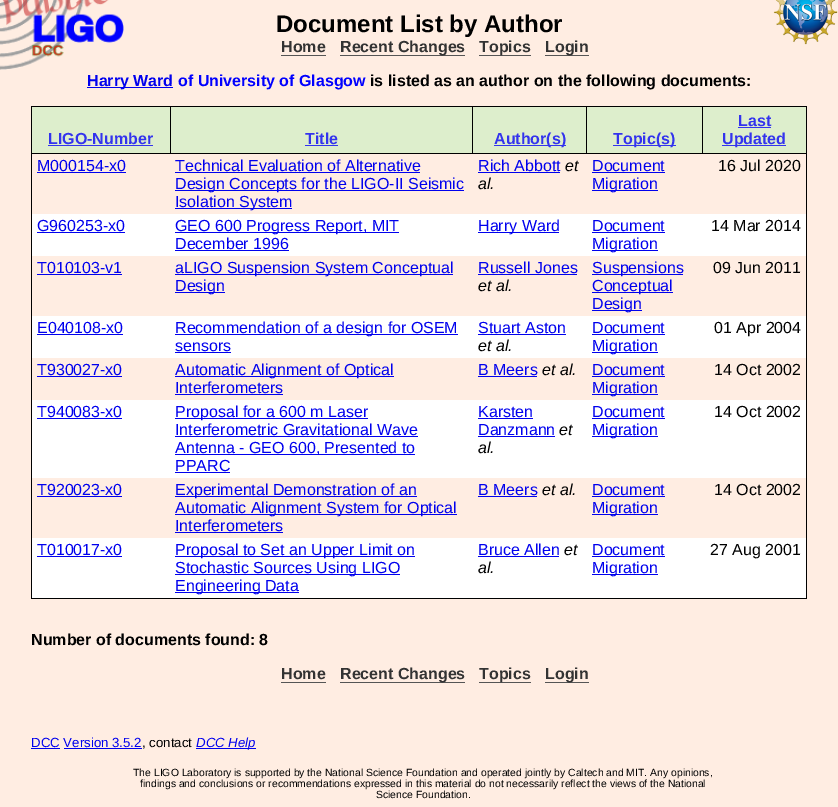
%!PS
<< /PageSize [838 807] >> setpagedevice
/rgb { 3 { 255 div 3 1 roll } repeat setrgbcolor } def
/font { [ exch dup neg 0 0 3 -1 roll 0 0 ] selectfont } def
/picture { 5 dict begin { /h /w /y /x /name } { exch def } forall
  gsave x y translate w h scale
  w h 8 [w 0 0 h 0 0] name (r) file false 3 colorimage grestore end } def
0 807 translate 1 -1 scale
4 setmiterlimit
255 237 226 rgb
0 0 838 807 rectfill
(img/1.rgb) 0 0 838 70 picture
[
  [281 55 45 1 85 85 85]
  [340 55 125 1 85 85 85]
  [479 55 52 1 85 85 85]
  [545 55 44 1 85 85 85]
  [87 87 86 1 0 0 238]
  [31 106 776 1 0 0 0]
  [806 106 1 493 0 0 0]
  [31 598 776 1 0 0 0]
  [31 106 1 493 0 0 0]
  [32 107 138 46 221 238 204]
  [702 153 105 1 0 0 0]
  [702 106 1 48 0 0 0]
  [586 153 117 1 0 0 0]
  [586 106 1 48 0 0 0]
  [472 153 115 1 0 0 0]
  [472 106 1 48 0 0 0]
  [170 153 303 1 0 0 0]
  [170 106 1 48 0 0 0]
  [31 153 140 1 0 0 0]
  [48 145 105 1 51 51 238]
  [171 107 301 46 221 238 204]
  [305 145 33 1 51 51 238]
  [473 107 113 46 221 238 204]
  [494 145 72 1 51 51 238]
  [587 107 115 46 221 238 204]
  [613 145 63 1 51 51 238]
  [703 107 103 46 221 238 204]
  [738 127 33 1 51 51 238]
  [722 145 64 1 51 51 238]
  [37 172 89 1 0 0 238]
  [175 172 245 1 0 0 238]
  [175 190 289 1 0 0 238]
  [175 208 117 1 0 0 238]
  [478 172 82 1 0 0 238]
  [592 172 73 1 0 0 238]
  [592 190 66 1 0 0 238]
  [32 214 774 42 255 255 255]
  [37 232 88 1 0 0 238]
  [175 232 224 1 0 0 238]
  [175 250 114 1 0 0 238]
  [478 232 81 1 0 0 238]
  [592 232 73 1 0 0 238]
  [592 250 66 1 0 0 238]
  [37 274 85 1 0 0 238]
  [175 274 278 1 0 0 238]
  [175 292 50 1 0 0 238]
  [478 274 99 1 0 0 238]
  [592 274 91 1 0 0 238]
  [592 292 81 1 0 0 238]
  [592 310 50 1 0 0 238]
  [32 316 774 42 255 255 255]
  [37 334 86 1 0 0 238]
  [175 334 283 1 0 0 238]
  [175 352 56 1 0 0 238]
  [478 334 88 1 0 0 238]
  [592 334 73 1 0 0 238]
  [592 352 66 1 0 0 238]
  [37 376 85 1 0 0 238]
  [175 376 219 1 0 0 238]
  [175 394 108 1 0 0 238]
  [478 376 59 1 0 0 238]
  [592 376 73 1 0 0 238]
  [592 394 66 1 0 0 238]
  [32 400 774 78 255 255 255]
  [37 418 85 1 0 0 238]
  [175 418 193 1 0 0 238]
  [175 436 243 1 0 0 238]
  [175 454 240 1 0 0 238]
  [175 472 55 1 0 0 238]
  [478 418 55 1 0 0 238]
  [478 436 77 1 0 0 238]
  [592 418 73 1 0 0 238]
  [592 436 66 1 0 0 238]
  [37 496 85 1 0 0 238]
  [175 496 242 1 0 0 238]
  [175 514 282 1 0 0 238]
  [175 532 108 1 0 0 238]
  [478 496 59 1 0 0 238]
  [592 496 73 1 0 0 238]
  [592 514 66 1 0 0 238]
  [32 538 774 60 255 255 255]
  [37 556 85 1 0 0 238]
  [175 556 240 1 0 0 238]
  [175 574 225 1 0 0 238]
  [175 592 124 1 0 0 238]
  [478 556 81 1 0 0 238]
  [592 556 73 1 0 0 238]
  [592 574 66 1 0 0 238]
  [281 682 45 1 85 85 85]
  [340 682 125 1 85 85 85]
  [479 682 52 1 85 85 85]
  [545 682 44 1 85 85 85]
  [31 748 29 1 0 0 238]
  [64 748 78 1 0 0 238]
  [196 748 60 1 0 0 238]
] { aload pop rgb rectfill } forall
/LiberationSans-Bold 24 font
0 0 0 rgb
276 32 moveto (Document List by Author) show
/LiberationSans-Bold 16 font
51 51 51 rgb
[
  [(Home) 281 52]
  [(Recent Changes) 340 52]
  [(Topics) 479 52]
  [(Login) 545 52]
] { aload pop moveto show } forall
0 0 238 rgb
87 86 moveto (Harry Ward) show
0 0 255 rgb
178 86 moveto (of University of Glasgow) show
0 0 0 rgb
370 86 moveto (is listed as an author on the following documents:) show
51 51 238 rgb
[
  [(LIGO-Number) 48 144]
  [(Title) 305 144]
  [(Author\(s\)) 494 144]
  [(Topic\(s\)) 613 144]
  [(Last) 738 126]
  [(Updated) 722 144]
] { aload pop moveto show } forall
/LiberationSans-Regular 16 font
0 0 238 rgb
[
  [(M000154-x0) 37 171]
  [(Technical Evaluation of Alternative) 175 171]
  [(Design Concepts for the LIGO-II Seismic) 175 189]
  [(Isolation System) 175 207]
  [(Rich Abbott) 478 171]
] { aload pop moveto show } forall
/LiberationSans-Italic 16 font
0 0 0 rgb
565 171 moveto (et) show
478 189 moveto (al.) show
/LiberationSans-Regular 16 font
0 0 238 rgb
592 171 moveto (Document) show
592 189 moveto (Migration) show
0 0 0 rgb
718 171 moveto (16 Jul 2020) show
0 0 238 rgb
[
  [(G960253-x0) 37 231]
  [(GEO 600 Progress Report, MIT) 175 231]
  [(December 1996) 175 249]
  [(Harry Ward) 478 231]
  [(Document) 592 231]
  [(Migration) 592 249]
] { aload pop moveto show } forall
0 0 0 rgb
711 231 moveto (14 Mar 2014) show
0 0 238 rgb
[
  [(T010103-v1) 37 273]
  [(aLIGO Suspension System Conceptual) 175 273]
  [(Design) 175 291]
  [(Russell Jones) 478 273]
] { aload pop moveto show } forall
/LiberationSans-Italic 16 font
0 0 0 rgb
478 291 moveto (et al.) show
/LiberationSans-Regular 16 font
0 0 238 rgb
[
  [(Suspensions) 592 273]
  [(Conceptual) 592 291]
  [(Design) 592 309]
] { aload pop moveto show } forall
0 0 0 rgb
713 273 moveto (09 Jun 2011) show
0 0 238 rgb
[
  [(E040108-x0) 37 333]
  [(Recommendation of a design for OSEM) 175 333]
  [(sensors) 175 351]
  [(Stuart Aston) 478 333]
] { aload pop moveto show } forall
/LiberationSans-Italic 16 font
0 0 0 rgb
478 351 moveto (et al.) show
/LiberationSans-Regular 16 font
0 0 238 rgb
592 333 moveto (Document) show
592 351 moveto (Migration) show
0 0 0 rgb
714 333 moveto (01 Apr 2004) show
0 0 238 rgb
[
  [(T930027-x0) 37 375]
  [(Automatic Alignment of Optical) 175 375]
  [(Interferometers) 175 393]
  [(B Meers) 478 375]
] { aload pop moveto show } forall
/LiberationSans-Italic 16 font
0 0 0 rgb
542 375 moveto (et al.) show
/LiberationSans-Regular 16 font
0 0 238 rgb
592 375 moveto (Document) show
592 393 moveto (Migration) show
0 0 0 rgb
714 375 moveto (14 Oct 2002) show
0 0 238 rgb
[
  [(T940083-x0) 37 417]
  [(Proposal for a 600 m Laser) 175 417]
  [(Interferometric Gravitational Wave) 175 435]
  [(Antenna - GEO 600, Presented to) 175 453]
  [(PPARC) 175 471]
  [(Karsten) 478 417]
  [(Danzmann) 478 435]
] { aload pop moveto show } forall
/LiberationSans-Italic 16 font
0 0 0 rgb
559 435 moveto (et) show
478 453 moveto (al.) show
/LiberationSans-Regular 16 font
0 0 238 rgb
592 417 moveto (Document) show
592 435 moveto (Migration) show
0 0 0 rgb
714 417 moveto (14 Oct 2002) show
0 0 238 rgb
[
  [(T920023-x0) 37 495]
  [(Experimental Demonstration of an) 175 495]
  [(Automatic Alignment System for Optical) 175 513]
  [(Interferometers) 175 531]
  [(B Meers) 478 495]
] { aload pop moveto show } forall
/LiberationSans-Italic 16 font
0 0 0 rgb
542 495 moveto (et al.) show
/LiberationSans-Regular 16 font
0 0 238 rgb
592 495 moveto (Document) show
592 513 moveto (Migration) show
0 0 0 rgb
714 495 moveto (14 Oct 2002) show
0 0 238 rgb
[
  [(T010017-x0) 37 555]
  [(Proposal to Set an Upper Limit on) 175 555]
  [(Stochastic Sources Using LIGO) 175 573]
  [(Engineering Data) 175 591]
  [(Bruce Allen) 478 555]
] { aload pop moveto show } forall
/LiberationSans-Italic 16 font
0 0 0 rgb
564 555 moveto (et) show
478 573 moveto (al.) show
/LiberationSans-Regular 16 font
0 0 238 rgb
592 555 moveto (Document) show
592 573 moveto (Migration) show
0 0 0 rgb
710 555 moveto (27 Aug 2001) show
/LiberationSans-Bold 16 font
31 645 moveto (Number of documents found: 8) show
51 51 51 rgb
[
  [(Home) 281 679]
  [(Recent Changes) 340 679]
  [(Topics) 479 679]
  [(Login) 545 679]
] { aload pop moveto show } forall
/LiberationSans-Regular 13.25 font
0 0 238 rgb
31 747 moveto (DCC Version 3.5.2) show
0 0 0 rgb
142 747 moveto (, contact) show
/LiberationSans-Italic 13.25 font
0 0 238 rgb
196 747 moveto (DCC Help) show
/LiberationSans-Regular 10.4 font
0 0 0 rgb
[
  [(The LIGO Laboratory is supported by the National Science Foundation and operated jointly by Caltech and MIT. Any opinions,) 133 776]
  [(findings and conclusions or recommendations expressed in this material do not necessarily reflect the views of the National) 140 787]
  [(Science Foundation.) 376 798]
] { aload pop moveto show } forall
showpage
